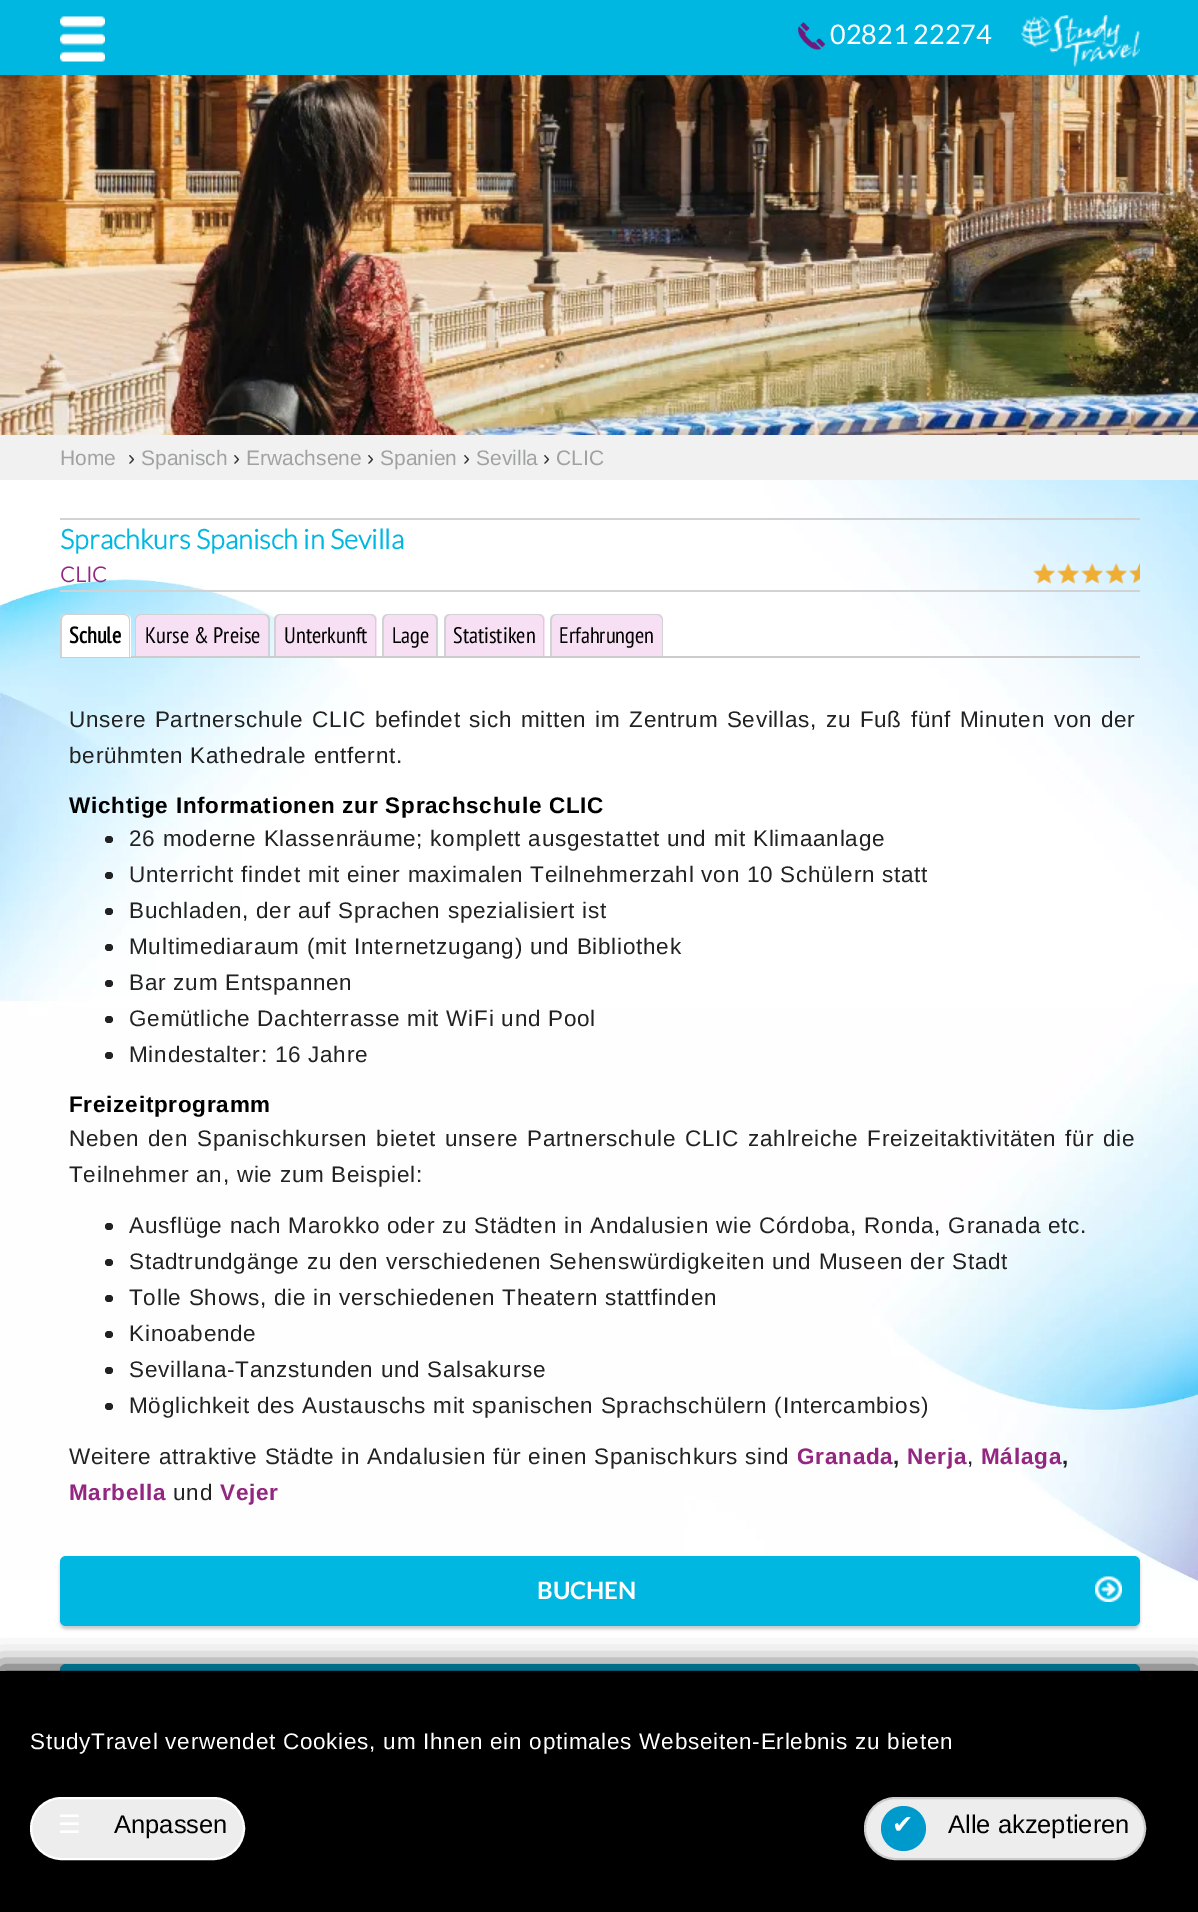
%!PS
<< /PageSize [1198 1912] /PageUsesTransparency true >> setpagedevice
/rgb { 3 { 255 div 3 1 roll } repeat setrgbcolor } def
/font { [ exch dup neg 0 0 3 -1 roll 0 0 ] selectfont } def
/alpha { dup .setfillconstantalpha .setstrokeconstantalpha } def
/circle { newpath 0 360 arc closepath } def
/roundrect { 5 dict begin { /r /h /w /y /x } { exch def } forall
  x r add y moveto x w add y 2 copy h add r arct x w add y h add x 1 index r arct
  x y h add x y r arct x y 2 copy exch w add exch r arct closepath end } def
/shadow { 12 dict begin { /a /b /q /h /w /y /x } { exch def } forall gsave /was 0 def
  9 -2 -9 { dup b mul 4 div /e exch def 1 sub .425 mul 2.718 exch exp 1 add a .99 .min exch div /now exch def
    1 1 now sub 1 was sub div sub alpha /was now def
    w h .min e 2 mul add 0 gt { x e sub y e sub w e 2 mul add h e 2 mul add
      q e add b .6 mul add w h .min 2 div e add .min 0 .max roundrect fill } if } for grestore end } def
/picture { 5 dict begin { /h /w /y /x /name } { exch def } forall
  gsave x y translate w h scale
  w h 8 [w 0 0 h 0 0] name (r) file false 3 colorimage grestore end } def
0 .pushpdf14devicefilter
0 1912 translate 1 -1 scale
4 setmiterlimit
255 255 255 rgb
0 0 1198 1912 rectfill
(img/1.rgb) 0 480 1198 1102 picture
0 183 226 rgb
0 0 1198 75 rectfill
(img/2.rgb) 60 16 45 46 picture
(img/3.rgb) 798 22 27 28 picture
(img/4.rgb) 1021 15 119 53 picture
(img/5.rgb) 0 75 1198 360 picture
[
  [0 435 1198 45 241 241 241]
  [60 518 1080 2 209 210 212]
  [60 590 1080 2 209 210 212]
] { aload pop rgb rectfill } forall
(img/6.rgb) 1033 563 22 21 picture
(img/7.rgb) 1057 563 22 21 picture
(img/8.rgb) 1081 563 22 21 picture
(img/9.rgb) 1105 563 22 21 picture
(img/10.rgb) 1129 563 11 21 picture
204 204 204 rgb
60 656 1080 2 rectfill
255 255 255 rgb
66 614 moveto 125 614 lineto 128.5 614 131 616.5 131 620 curveto 131 657 lineto 60 657 lineto 60 620 lineto 60 616.5 62.5 614 66 614 curveto closepath fill
209 210 212 rgb
66 614 moveto 124 614 lineto 128 614 130 616 130 620 curveto 130 657 lineto 60 657 lineto 60 620 lineto 60 616 63 614 66 614 curveto closepath 66 615 moveto 124 615 lineto 127 615 129 617 129 620 curveto 129 657 lineto 62 657 lineto 62 620 lineto 62 617 64 615 66 615 curveto closepath eofill
248 224 244 rgb
141 614 moveto 264 614 lineto 267.5 614 270 616.5 270 620 curveto 270 656 lineto 135 656 lineto 135 620 lineto 135 616.5 137.5 614 141 614 curveto closepath fill
209 210 212 rgb
141 614 moveto 264 614 lineto 267 614 270 616 270 620 curveto 270 656 lineto 135 656 lineto 135 620 lineto 135 616 138 614 141 614 curveto closepath 141 615 moveto 264 615 lineto 266 615 268 617 268 620 curveto 268 656 lineto 136 656 lineto 136 620 lineto 136 617 139 615 141 615 curveto closepath eofill
248 224 244 rgb
281 614 moveto 371 614 lineto 374.5 614 377 616.5 377 620 curveto 377 656 lineto 275 656 lineto 275 620 lineto 275 616.5 277.5 614 281 614 curveto closepath fill
209 210 212 rgb
280 614 moveto 370 614 lineto 374 614 376 616 376 620 curveto 376 656 lineto 274 656 lineto 274 620 lineto 274 616 277 614 280 614 curveto closepath 280 615 moveto 370 615 lineto 373 615 375 617 375 620 curveto 375 656 lineto 276 656 lineto 276 620 lineto 276 617 278 615 280 615 curveto closepath eofill
248 224 244 rgb
389 614 moveto 432 614 lineto 435.5 614 438 616.5 438 620 curveto 438 656 lineto 383 656 lineto 383 620 lineto 383 616.5 385.5 614 389 614 curveto closepath fill
209 210 212 rgb
388 614 moveto 432 614 lineto 435 614 438 616 438 620 curveto 438 656 lineto 382 656 lineto 382 620 lineto 382 616 385 614 388 614 curveto closepath 388 615 moveto 432 615 lineto 434 615 436 617 436 620 curveto 436 656 lineto 384 656 lineto 384 620 lineto 384 617 386 615 388 615 curveto closepath eofill
248 224 244 rgb
450 614 moveto 539 614 lineto 542.5 614 545 616.5 545 620 curveto 545 656 lineto 444 656 lineto 444 620 lineto 444 616.5 446.5 614 450 614 curveto closepath fill
209 210 212 rgb
450 614 moveto 538 614 lineto 542 614 544 616 544 620 curveto 544 656 lineto 444 656 lineto 444 620 lineto 444 616 447 614 450 614 curveto closepath 450 615 moveto 538 615 lineto 541 615 543 617 543 620 curveto 543 656 lineto 446 656 lineto 446 620 lineto 446 617 448 615 450 615 curveto closepath eofill
248 224 244 rgb
557 614 moveto 657 614 lineto 660.5 614 663 616.5 663 620 curveto 663 656 lineto 551 656 lineto 551 620 lineto 551 616.5 553.5 614 557 614 curveto closepath fill
209 210 212 rgb
556 614 moveto 657 614 lineto 660 614 663 616 663 620 curveto 663 656 lineto 550 656 lineto 550 620 lineto 550 616 553 614 556 614 curveto closepath 556 615 moveto 657 615 lineto 659 615 662 617 662 620 curveto 662 656 lineto 552 656 lineto 552 620 lineto 552 617 554 615 556 615 curveto closepath eofill
34 34 34 rgb
105 836 8 7 3.5 roundrect fill
105 872 8 7 3.5 roundrect fill
105 908 8 7 3.5 roundrect fill
105 944 8 7 3.5 roundrect fill
105 980 8 7 3.5 roundrect fill
105 1016 8 7 3.5 roundrect fill
105 1052 8 7 3.5 roundrect fill
105 1223 8 7 3.5 roundrect fill
105 1259 8 7 3.5 roundrect fill
105 1295 8 7 3.5 roundrect fill
105 1331 8 7 3.5 roundrect fill
105 1367 8 7 3.5 roundrect fill
105 1403 8 7 3.5 roundrect fill
0 0 0 rgb
60 1559 1080 70 6 1.5 0.2 shadow
0 183 226 rgb
60 1556 1080 70 6 roundrect fill
(img/11.rgb) 1095 1576 27 26 picture
0 0 0 rgb
60 1667 1080 69 6 1.5 0.2 shadow
0 183 226 rgb
60 1664 1080 69 6 roundrect fill
0 0 0 rgb
0 1667 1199 241 0 13 0.8 shadow
0 1671 1198 241 rectfill
237 237 237 rgb
31 1798 213 61 30.5 roundrect gsave fill grestore
255 255 255 rgb
2 setlinewidth
stroke
237 237 237 rgb
865 1798 280 61 30.5 roundrect gsave fill grestore
204 204 204 rgb
stroke
0 153 204 rgb
903.5 1828.5 22.5 circle fill
/Lato-Regular 27 font
255 255 255 rgb
830 44 moveto (02821 22274) show
/LiberationSans-Regular 21 font
160 161 163 rgb
60 465 moveto (Home) show
51 51 51 rgb
128 465 moveto (›) show
160 161 163 rgb
141 465 moveto (Spanisch) show
51 51 51 rgb
233 465 moveto (›) show
160 161 163 rgb
246 465 moveto (Erwachsene) show
51 51 51 rgb
367 465 moveto (›) show
160 161 163 rgb
380 465 moveto (Spanien) show
51 51 51 rgb
463 465 moveto (›) show
160 161 163 rgb
476 465 moveto (Sevilla) show
51 51 51 rgb
543 465 moveto (›) show
160 161 163 rgb
556 465 moveto (CLIC) show
/Lato-Bold 27.25 font
0 183 226 rgb
60 549 moveto (Sprachkurs Spanisch in Sevilla) show
/Lato-Bold 21 font
147 38 129 rgb
60 582 moveto (CLIC) show
/PTSansNarrow-Bold 22.5 font
0 0 0 rgb
69 643 moveto (Schule) show
/PTSansNarrow-Regular 22.5 font
[
  [(Kurse & Preise) 145 643]
  [(Unterkunft) 284 643]
  [(Lage) 392 643]
  [(Statistiken) 453 643]
  [(Erfahrungen) 559 643]
] { aload pop moveto show } forall
/LiberationSans-Regular 22.5 font
34 34 34 rgb
69 727 moveto 1.6 0 32 0.75 0 (Unsere Partnerschule CLIC befindet sich mitten im Zentrum Sevillas, zu Fuß fünf Minuten von der) awidthshow
69 763 moveto 0.75 0 (berühmten Kathedrale entfernt.) ashow
/LiberationSans-Bold 22.5 font
0 0 0 rgb
69 813 moveto 0.75 0 (Wichtige Informationen zur Sprachschule CLIC) ashow
/LiberationSans-Regular 22.5 font
34 34 34 rgb
129 846 moveto 0.75 0 (26 moderne Klassenräume; komplett ausgestattet und mit Klimaanlage) ashow
129 882 moveto 0.75 0 (Unterricht findet mit einer maximalen Teilnehmerzahl von 10 Schülern statt) ashow
129 918 moveto 0.75 0 (Buchladen, der auf Sprachen spezialisiert ist) ashow
129 954 moveto 0.75 0 (Multimediaraum \(mit Internetzugang\) und Bibliothek) ashow
129 990 moveto 0.75 0 (Bar zum Entspannen) ashow
129 1026 moveto 0.75 0 (Gemütliche Dachterrasse mit WiFi und Pool) ashow
129 1062 moveto 0.75 0 (Mindestalter: 16 Jahre) ashow
/LiberationSans-Bold 22.5 font
0 0 0 rgb
69 1112 moveto 0.75 0 (Freizeitprogramm) ashow
/LiberationSans-Regular 22.5 font
34 34 34 rgb
69 1146 moveto 2 0 32 0.75 0 (Neben den Spanischkursen bietet unsere Partnerschule CLIC zahlreiche Freizeitaktivitäten für die) awidthshow
69 1182 moveto 0.75 0 (Teilnehmer an, wie zum Beispiel:) ashow
129 1233 moveto 0.75 0 (Ausflüge nach Marokko oder zu Städten in Andalusien wie Córdoba, Ronda, Granada etc.) ashow
129 1269 moveto 0.75 0 (Stadtrundgänge zu den verschiedenen Sehenswürdigkeiten und Museen der Stadt) ashow
129 1305 moveto 0.75 0 (Tolle Shows, die in verschiedenen Theatern stattfinden) ashow
129 1341 moveto 0.75 0 (Kinoabende) ashow
129 1377 moveto 0.75 0 (Sevillana-Tanzstunden und Salsakurse) ashow
129 1413 moveto 0.75 0 (Möglichkeit des Austauschs mit spanischen Sprachschülern \(Intercambios\)) ashow
69 1464 moveto 0.75 0 (Weitere attraktive Städte in Andalusien für einen Spanischkurs sind) ashow
/LiberationSans-Bold 22.5 font
147 38 129 rgb
797 1464 moveto 0.75 0 (Granada) ashow
34 34 34 rgb
893 1464 moveto 0.75 0 (,) ashow
147 38 129 rgb
907 1464 moveto 0.75 0 (Nerja) ashow
/LiberationSans-Regular 22.5 font
34 34 34 rgb
967 1464 moveto 0.75 0 (,) ashow
/LiberationSans-Bold 22.5 font
147 38 129 rgb
981 1464 moveto 0.75 0 (Málaga) ashow
34 34 34 rgb
1062 1464 moveto 0.75 0 (,) ashow
147 38 129 rgb
69 1500 moveto 0.75 0 (Marbella) ashow
/LiberationSans-Regular 22.5 font
34 34 34 rgb
173 1500 moveto 0.75 0 (und) ashow
/LiberationSans-Bold 22.5 font
147 38 129 rgb
220 1500 moveto 0.75 0 (Vejer) ashow
/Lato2-Bold 24 font
255 255 255 rgb
537 1599 moveto (BUCHEN) show
/LiberationSans-Regular 22.5 font
30 1749 moveto 0.75 0 (StudyTravel verwendet Cookies, um Ihnen ein optimales Webseiten-Erlebnis zu bieten) ashow
/DejaVuSans-Regular 25.5 font
58 1833 moveto (☰) show
/LiberationSans-Regular 25.5 font
0 0 0 rgb
114 1833 moveto (Anpassen) show
/DejaVuSans-Regular 25.5 font
255 255 255 rgb
892 1833 moveto (✔) show
/LiberationSans-Regular 25.5 font
0 0 0 rgb
948 1833 moveto (Alle akzeptieren) show
.poppdf14devicefilter showpage
